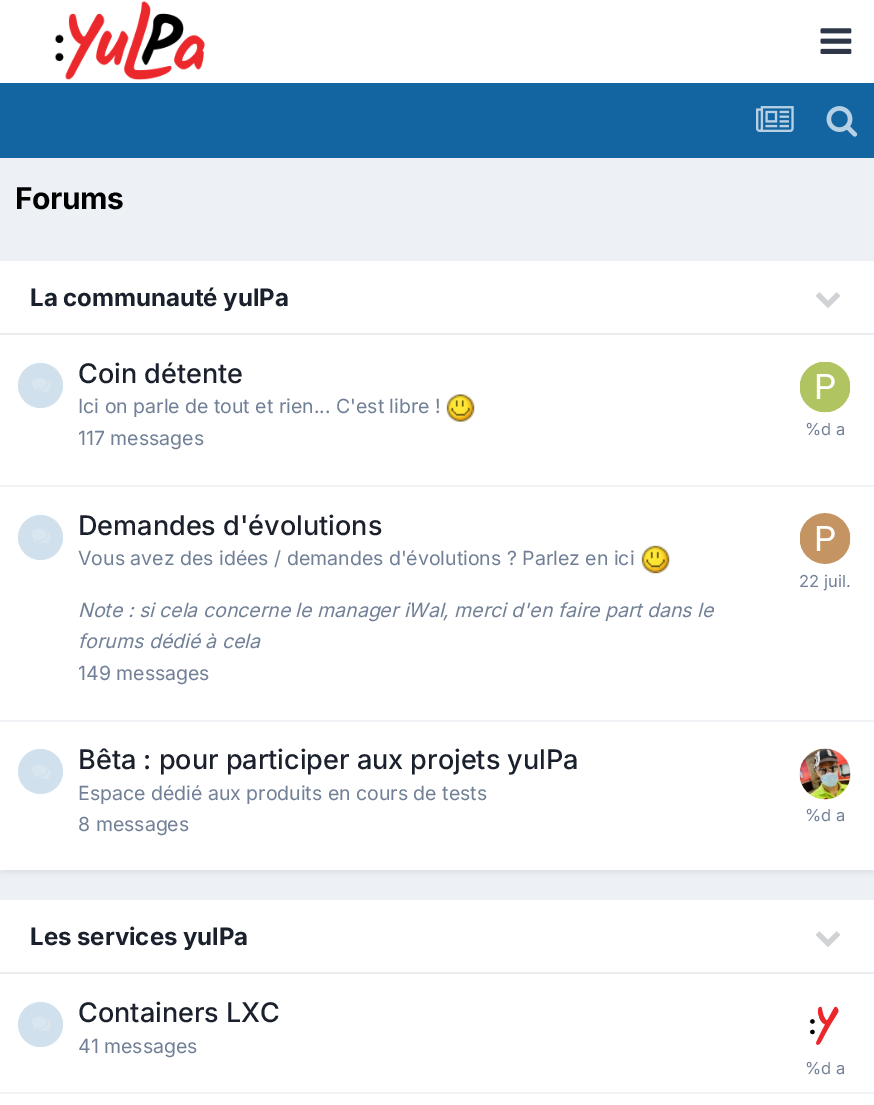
%!PS
<< /PageSize [874 1105] /PageUsesTransparency true >> setpagedevice
/rgb { 3 { 255 div 3 1 roll } repeat setrgbcolor } def
/font { [ exch dup neg 0 0 3 -1 roll 0 0 ] selectfont } def
/alpha { dup .setfillconstantalpha .setstrokeconstantalpha } def
/circle { newpath 0 360 arc closepath } def
/roundrect { 5 dict begin { /r /h /w /y /x } { exch def } forall
  x r add y moveto x w add y 2 copy h add r arct x w add y h add x 1 index r arct
  x y h add x y r arct x y 2 copy exch w add exch r arct closepath end } def
/shadow { 12 dict begin { /a /b /q /h /w /y /x } { exch def } forall gsave /was 0 def
  9 -2 -9 { dup b mul 4 div /e exch def 1 sub .425 mul 2.718 exch exp 1 add a .99 .min exch div /now exch def
    1 1 now sub 1 was sub div sub alpha /was now def
    w h .min e 2 mul add 0 gt { x e sub y e sub w e 2 mul add h e 2 mul add
      q e add b .6 mul add w h .min 2 div e add .min 0 .max roundrect fill } if } for grestore end } def
/picture { 5 dict begin { /h /w /y /x /name } { exch def } forall
  gsave x y translate w h scale
  w h 8 [w 0 0 h 0 0] name (r) file false 3 colorimage grestore end } def
0 .pushpdf14devicefilter
0 1105 translate 1 -1 scale
4 setmiterlimit
237 240 244 rgb
0 0 874 1105 rectfill
255 255 255 rgb
0 0 874 83 rectfill
(img/1.rgb) 54 1 151 79 picture
(img/2.rgb) 820 28 32 26 picture
18 101 161 rgb
0 83 874 75 rectfill
(img/3.rgb) 756 106 38 26 picture
(img/4.rgb) 826 106 32 31 picture
45 55 72 rgb
2 266 871 606 0 3 0.1 shadow
255 255 255 rgb
0 261 874 609 rectfill
234 236 239 rgb
0 333 874 2 rectfill
(img/5.rgb) 816 292 24 16 picture
241 242 245 rgb
0 485 874 2 rectfill
208 224 236 rgb
40.5 385.5 22.5 circle fill
(img/6.rgb) 31 378 20 15 picture
(img/7.rgb) 446 394 29 28 picture
(img/8.rgb) 800 362 51 51 picture
241 242 245 rgb
0 720 874 2 rectfill
208 224 236 rgb
40.5 537.5 22.5 circle fill
(img/9.rgb) 31 529 20 15 picture
(img/10.rgb) 641 545 29 29 picture
(img/11.rgb) 800 513 51 51 picture
40.5 771.5 22.5 circle fill
(img/6.rgb) 31 765 20 15 picture
(img/12.rgb) 799 748 52 52 picture
255 255 255 rgb
0 900 874 205 rectfill
234 236 239 rgb
0 972 874 2 rectfill
(img/5.rgb) 816 931 24 16 picture
241 242 245 rgb
0 1092 874 2 rectfill
208 224 236 rgb
40.5 1024.5 22.5 circle fill
(img/6.rgb) 31 1017 20 15 picture
(img/13.rgb) 809 1006 30 39 picture
/Inter-Bold 30 font
0 0 0 rgb
15 209 moveto -0.5 0 (Forums) ashow
/Inter-Bold 24 font
26 32 44 rgb
30 306 moveto (La communauté yulPa) show
/Inter-Medium 27 font
78 383 moveto (Coin détente) show
/Inter-Regular 19.5 font
113 128 150 rgb
78 413 moveto (Ici on parle de tout et rien... C'est libre !) show
78 445 moveto (117 messages) show
/Inter-Regular 16.5 font
805 435 moveto (%d a) show
/Inter-Medium 27 font
26 32 44 rgb
78 535 moveto (Demandes d'évolutions) show
/Inter-Regular 19.5 font
113 128 150 rgb
78 565 moveto (Vous avez des idées / demandes d'évolutions ? Parlez en ici) show
/Inter-Italic 19.5 font
78 617 moveto (Note : si cela concerne le manager iWal, merci d'en faire part dans le) show
78 648 moveto (forums dédié à cela) show
/Inter-Regular 16.5 font
799 587 moveto (22 juil.) show
/Inter-Regular 19.5 font
78 680 moveto (149 messages) show
/Inter-Medium 27 font
26 32 44 rgb
78 769 moveto (Bêta : pour participer aux projets yulPa) show
/Inter-Regular 19.5 font
113 128 150 rgb
78 800 moveto (Espace dédié aux produits en cours de tests) show
78 831 moveto (8 messages) show
/Inter-Regular 16.5 font
805 821 moveto (%d a) show
/Inter-Bold 24 font
26 32 44 rgb
30 945 moveto (Les services yulPa) show
/Inter-Medium 27 font
78 1022 moveto (Containers LXC) show
/Inter-Regular 19.5 font
113 128 150 rgb
78 1053 moveto (41 messages) show
/Inter-Regular 16.5 font
805 1074 moveto (%d a) show
.poppdf14devicefilter showpage
